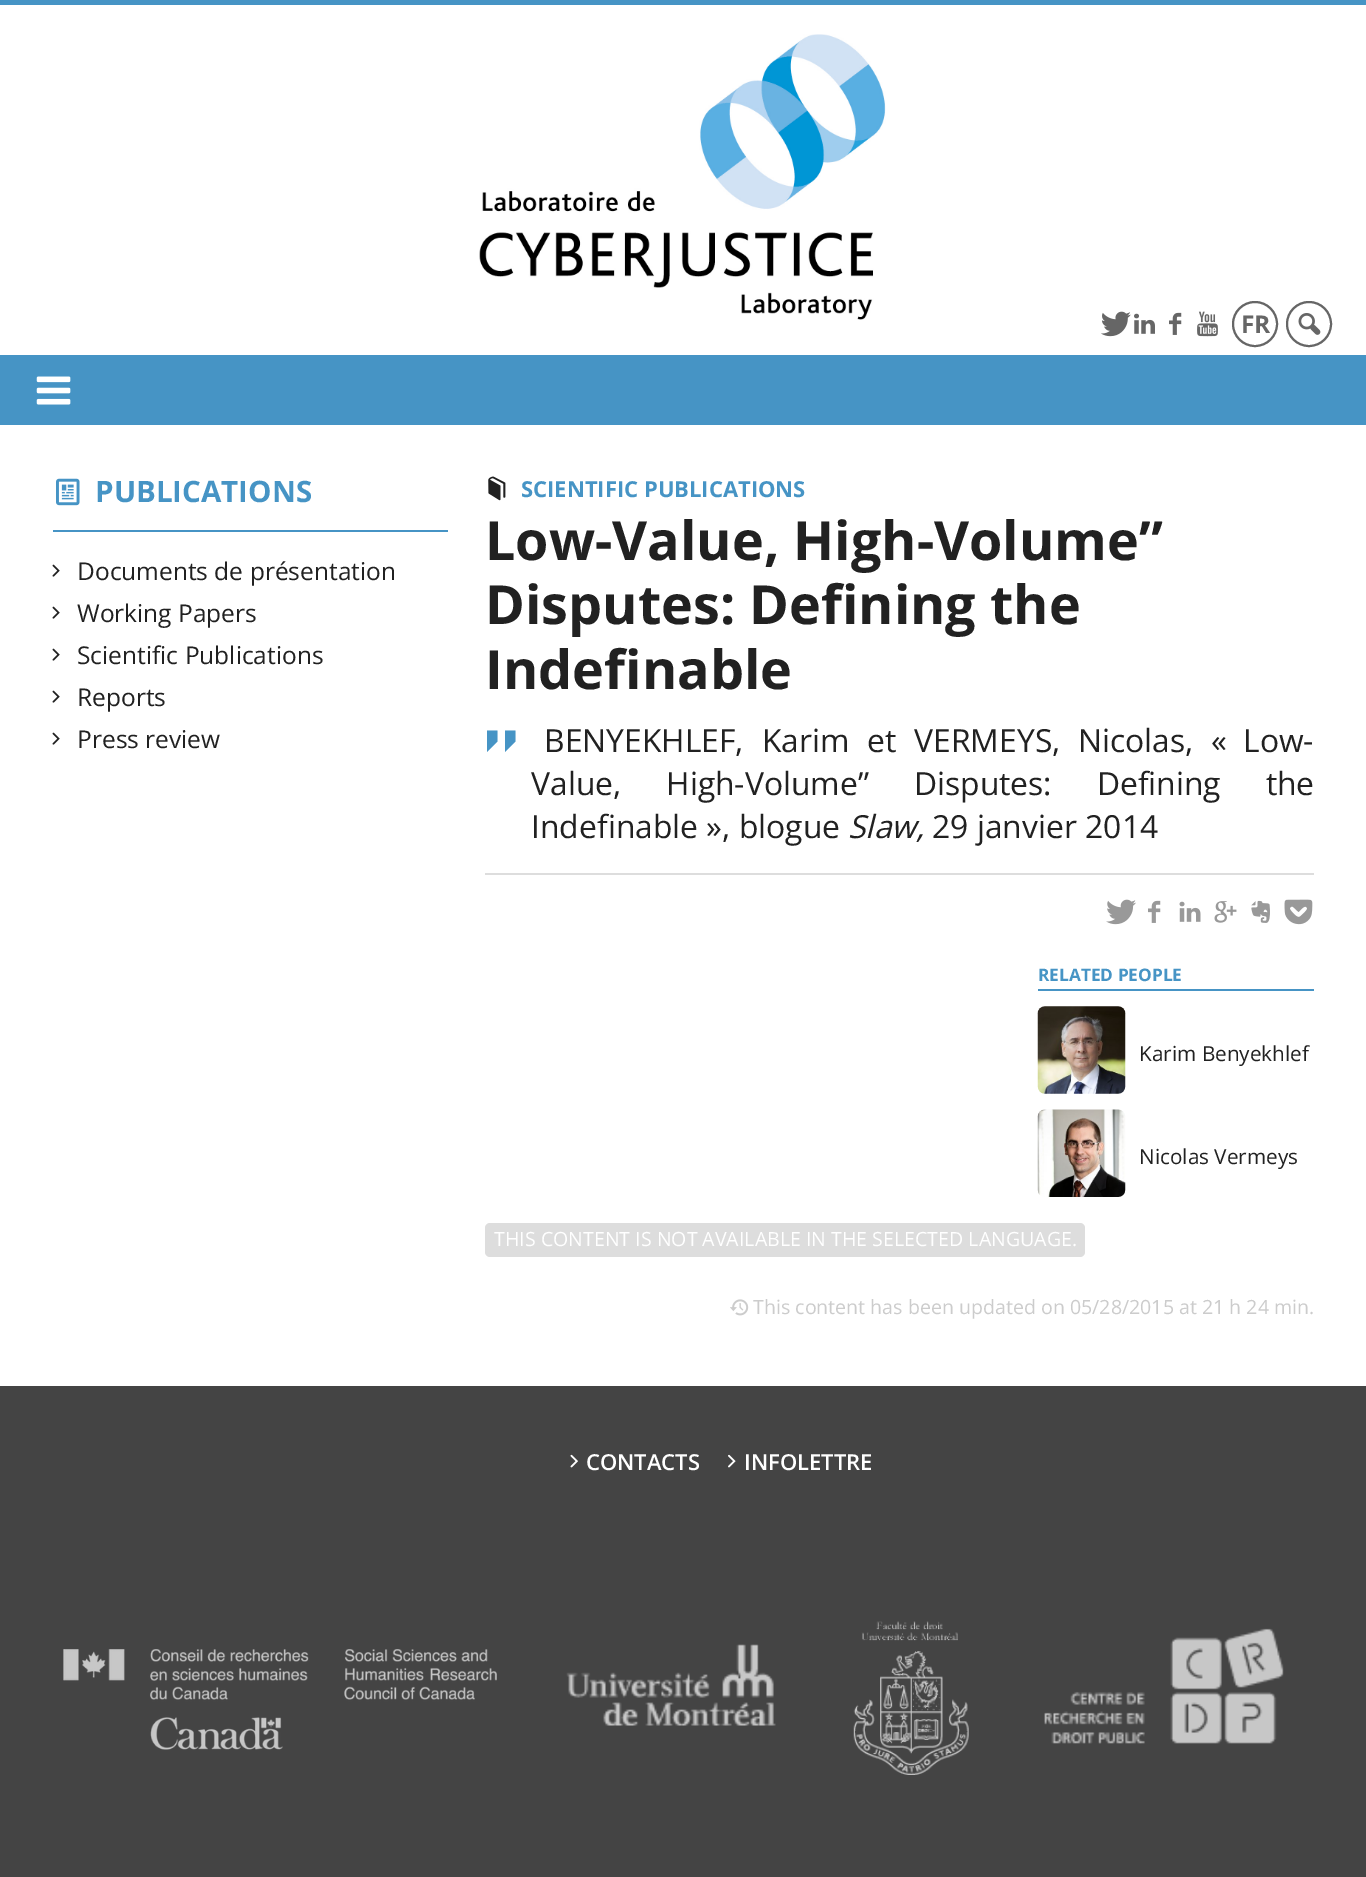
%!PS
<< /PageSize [1366 1877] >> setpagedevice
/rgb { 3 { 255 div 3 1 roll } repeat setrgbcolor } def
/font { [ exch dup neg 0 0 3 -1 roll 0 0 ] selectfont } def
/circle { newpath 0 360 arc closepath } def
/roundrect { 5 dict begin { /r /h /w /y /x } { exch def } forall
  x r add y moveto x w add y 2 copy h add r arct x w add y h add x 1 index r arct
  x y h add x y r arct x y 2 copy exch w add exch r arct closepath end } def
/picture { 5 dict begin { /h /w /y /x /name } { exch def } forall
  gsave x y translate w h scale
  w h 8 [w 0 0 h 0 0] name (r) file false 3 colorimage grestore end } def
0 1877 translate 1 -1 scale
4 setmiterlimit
255 255 255 rgb
0 0 1366 1877 rectfill
70 148 197 rgb
0 0 1366 5 rectfill
(img/1.rgb) 479 34 407 286 picture
(img/2.rgb) 1101 311 30 26 picture
(img/3.rgb) 1134 313 21 21 picture
(img/4.rgb) 1169 312 13 23 picture
(img/5.rgb) 1197 311 21 26 picture
102 102 102 rgb
2 setlinewidth
1255 324 22 circle stroke
1309 324 22 circle stroke
(img/6.rgb) 1298 313 23 22 picture
70 148 197 rgb
0 355 1366 70 rectfill
(img/7.rgb) 36 376 35 29 picture
53 530 395 2 rectfill
(img/8.rgb) 56 478 24 28 picture
(img/9.rgb) 52 564 8 13 picture
(img/9.rgb) 52 606 8 13 picture
(img/9.rgb) 52 648 8 13 picture
(img/9.rgb) 52 690 8 13 picture
(img/9.rgb) 52 732 8 13 picture
(img/10.rgb) 488 476 18 25 picture
487 730.5 moveto 497.5 730.5 lineto 497.5 741.5 lineto 487 752 lineto closepath 505 730.5 moveto 515.5 730.5 lineto 515.5 741.5 lineto 505 752 lineto closepath fill
221 221 221 rgb
485 873 829 2 rectfill
(img/11.rgb) 1106 899 30 26 picture
(img/12.rgb) 1148 900 13 23 picture
(img/13.rgb) 1179 901 22 21 picture
(img/14.rgb) 1214 901 23 22 picture
(img/15.rgb) 1251 900 19 23 picture
(img/16.rgb) 1284 899 29 26 picture
70 148 197 rgb
1038 989 276 2 rectfill
(img/17.rgb) 1037 1006 89 88 picture
(img/18.rgb) 1037 1109 89 88 picture
221 221 221 rgb
485 1223 600 34 5 roundrect fill
(img/19.rgb) 730 1299 19 17 picture
68 68 68 rgb
0 1386 1366 491 rectfill
(img/20.rgb) 570 1454 8 14 picture
(img/21.rgb) 728 1454 8 14 picture
(img/22.rgb) 63 1649 434 101 picture
(img/23.rgb) 566 1644 210 82 picture
(img/24.rgb) 853 1621 116 154 picture
(img/25.rgb) 1044 1628 240 116 picture
/OpenSans-Bold 24.5 font
102 102 102 rgb
1241 333 moveto (FR) show
/OpenSans-Bold 29.5 font
70 148 197 rgb
95 502 moveto (PUBLICATIONS) show
/OpenSans-Regular 24.5 font
33 33 33 rgb
[
  [(Documents de présentation) 77 580]
  [(Working Papers) 77 622]
  [(Scientific Publications) 77 664]
  [(Reports) 77 706]
  [(Press review) 77 748]
] { aload pop moveto show } forall
/OpenSans-Bold 22 font
70 148 197 rgb
521 497 moveto (SCIENTIFIC PUBLICATIONS) show
/OpenSans-Bold 53.9 font
33 33 33 rgb
[
  [(Low-Value, High-Volume”) 485 560]
  [(Disputes: Defining the) 485 624]
  [(Indefinable) 485 689]
] { aload pop moveto show } forall
/OpenSans-Regular 31.85 font
544 752 moveto 9.5 0 32 (BENYEKHLEF, Karim et VERMEYS, Nicolas, «) widthshow
1243 752 moveto (Low-) show
531 795 moveto 36.5 0 32 (Value, High-Volume” Disputes: Defining the) widthshow
531 838 moveto (Indefinable », blogue) show
/OpenSans-Italic 31.85 font
848 838 moveto (Slaw,) show
/OpenSans-Regular 31.85 font
932 838 moveto (29 janvier 2014) show
/OpenSans-Bold 17.25 font
70 148 197 rgb
1038 981 moveto (RELATED PEOPLE) show
/OpenSans-Regular 20.75 font
33 33 33 rgb
1139 1061 moveto (Karim Benyekhlef) show
1139 1164 moveto (Nicolas Vermeys) show
/OpenSans-Regular 19.6 font
255 255 255 rgb
494 1246 moveto (THIS CONTENT IS NOT AVAILABLE IN THE SELECTED LANGUAGE.) show
204 204 204 rgb
753 1314 moveto (This content has been updated on 05/28/2015 at 21 h 24 min.) show
/OpenSans-SemiBold 22 font
255 255 255 rgb
586 1470 moveto (CONTACTS) show
744 1470 moveto (INFOLETTRE) show
showpage
